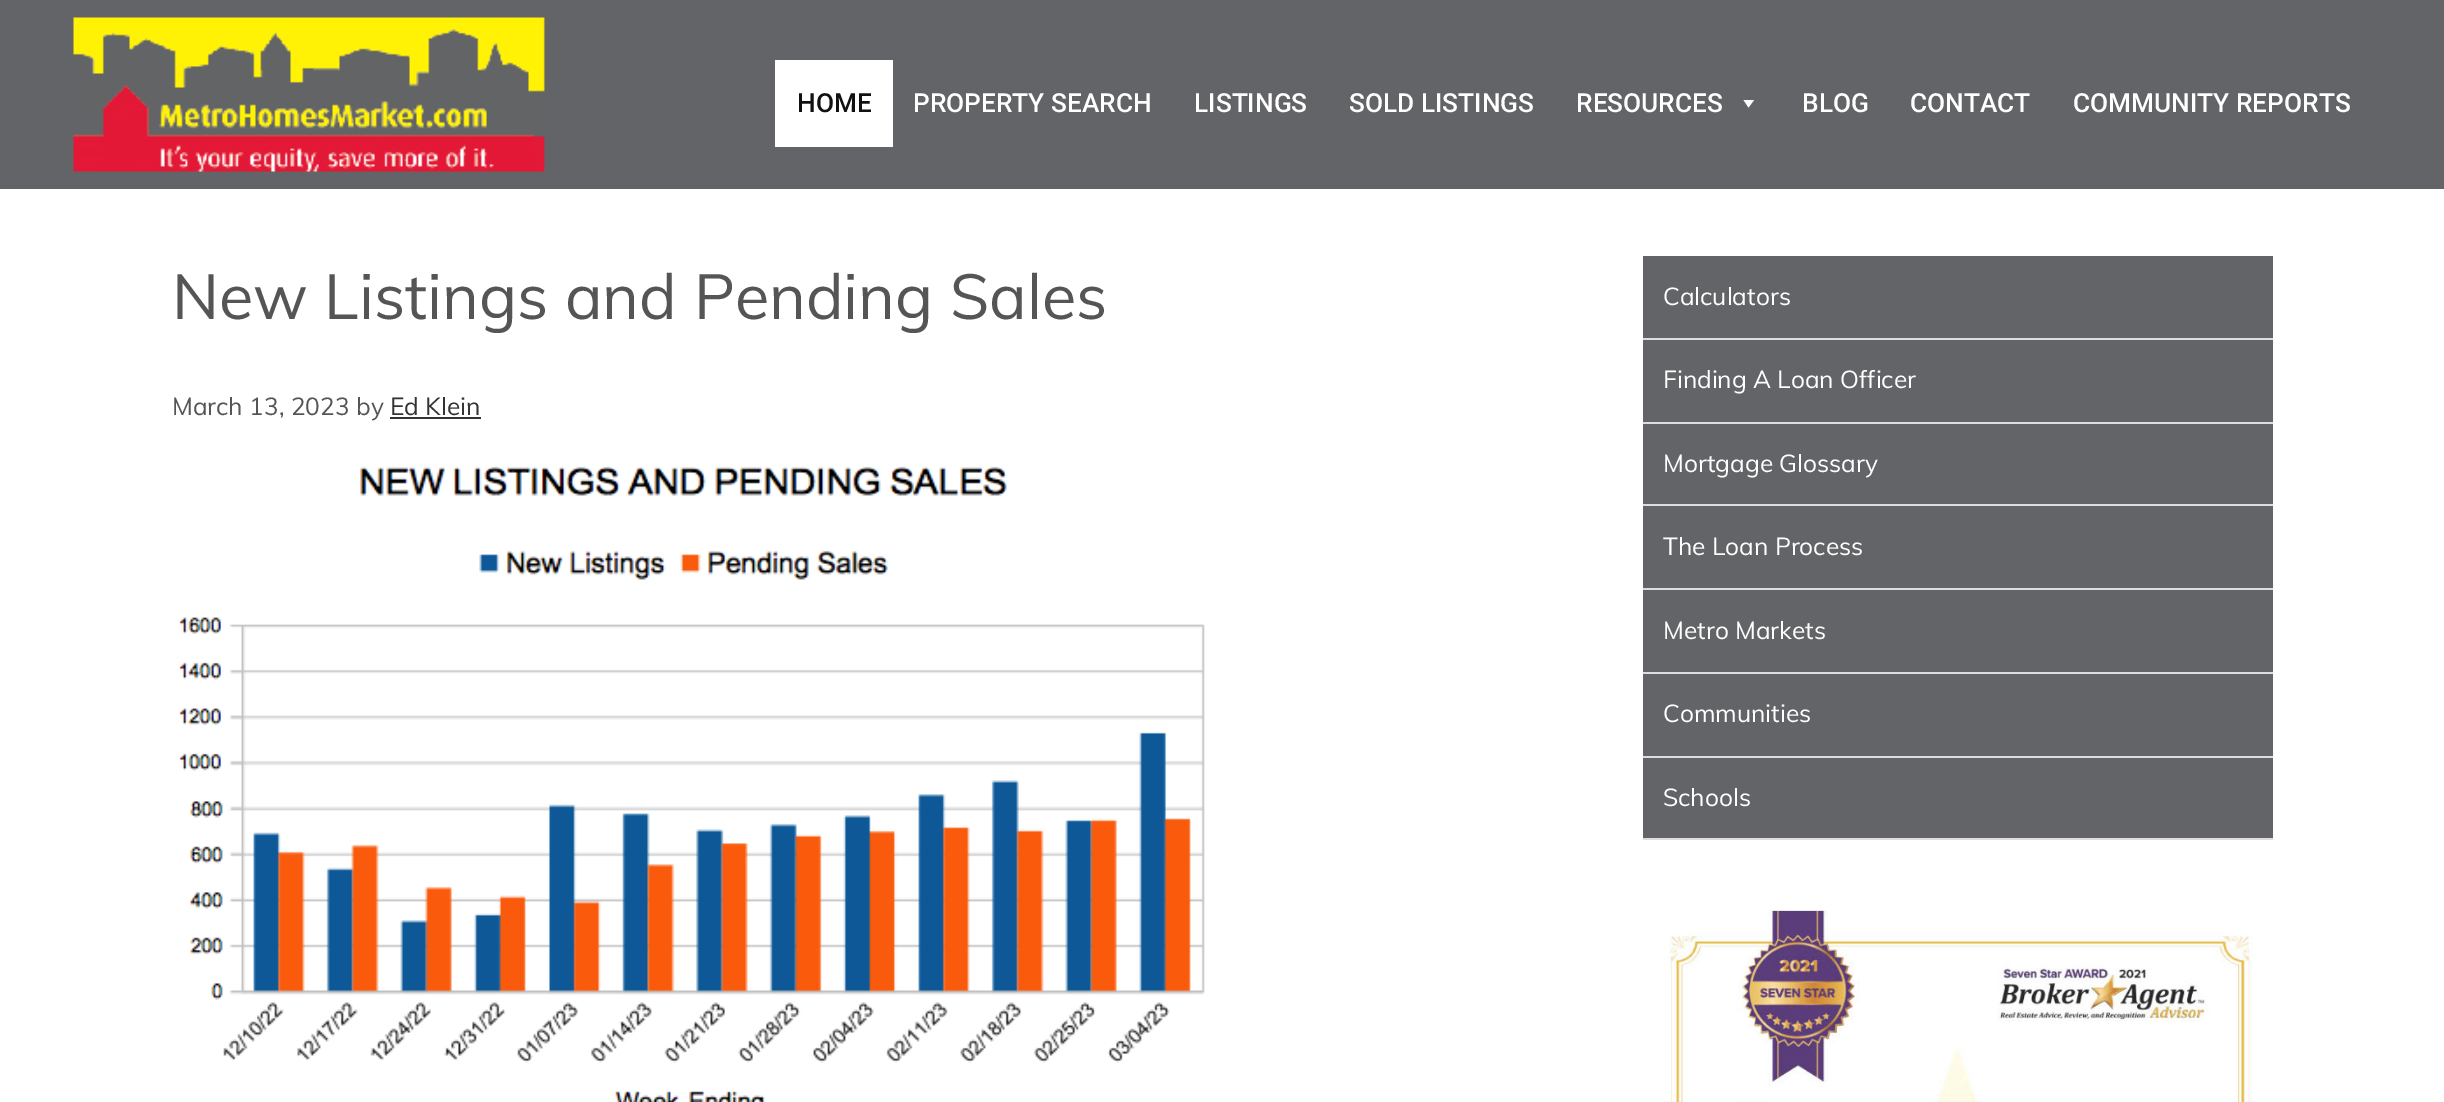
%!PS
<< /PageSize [2444 1102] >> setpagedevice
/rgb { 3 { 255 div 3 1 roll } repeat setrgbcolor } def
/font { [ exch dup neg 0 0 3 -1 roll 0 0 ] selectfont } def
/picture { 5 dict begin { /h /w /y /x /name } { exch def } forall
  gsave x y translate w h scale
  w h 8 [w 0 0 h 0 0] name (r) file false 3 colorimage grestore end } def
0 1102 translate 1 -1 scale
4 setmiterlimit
255 255 255 rgb
0 0 2444 1102 rectfill
99 100 103 rgb
0 0 2444 189 rectfill
(img/1.rgb) 73 17 472 155 picture
255 255 255 rgb
775 60 118 87 rectfill
1754 100 moveto 1748.5 107.5 lineto 1743.5 100 lineto closepath fill
51 51 51 rgb
390 417 91 2 rectfill
(img/2.rgb) 178 466 1027 636 picture
[
  [1643 338 630 2 221 221 221]
  [1643 256 630 82 99 100 103]
  [1643 422 630 2 221 221 221]
  [1643 340 630 82 99 100 103]
  [1643 504 630 2 221 221 221]
  [1643 424 630 80 99 100 103]
  [1643 588 630 2 221 221 221]
  [1643 506 630 82 99 100 103]
  [1643 672 630 2 221 221 221]
  [1643 590 630 82 99 100 103]
  [1643 756 630 2 221 221 221]
  [1643 674 630 82 99 100 103]
  [1643 838 630 2 221 221 221]
  [1643 758 630 80 99 100 103]
] { aload pop rgb rectfill } forall
(img/3.rgb) 1669 910 584 192 picture
/Roboto-Medium 26.25 font
17 17 17 rgb
797 112 moveto (HOME) show
255 255 255 rgb
[
  [(PROPERTY SEARCH) 913 112]
  [(LISTINGS) 1194 112]
  [(SOLD LISTINGS) 1349 112]
  [(RESOURCES) 1576 112]
  [(BLOG) 1802 112]
  [(CONTACT) 1910 112]
  [(COMMUNITY REPORTS) 2073 112]
] { aload pop moveto show } forall
/Muli-Regular 63 font
85 85 85 rgb
172 319 moveto (New Listings and Pending Sales) show
/Muli-Regular 24.5 font
172 415 moveto (March 13, 2023 by) show
51 51 51 rgb
390 415 moveto (Ed Klein) show
255 255 255 rgb
[
  [(Calculators) 1663 305]
  [(Finding A Loan Officer) 1663 388]
  [(Mortgage Glossary) 1663 472]
  [(The Loan Process) 1663 555]
  [(Metro Markets) 1663 639]
  [(Communities) 1663 722]
  [(Schools) 1663 806]
] { aload pop moveto show } forall
showpage
